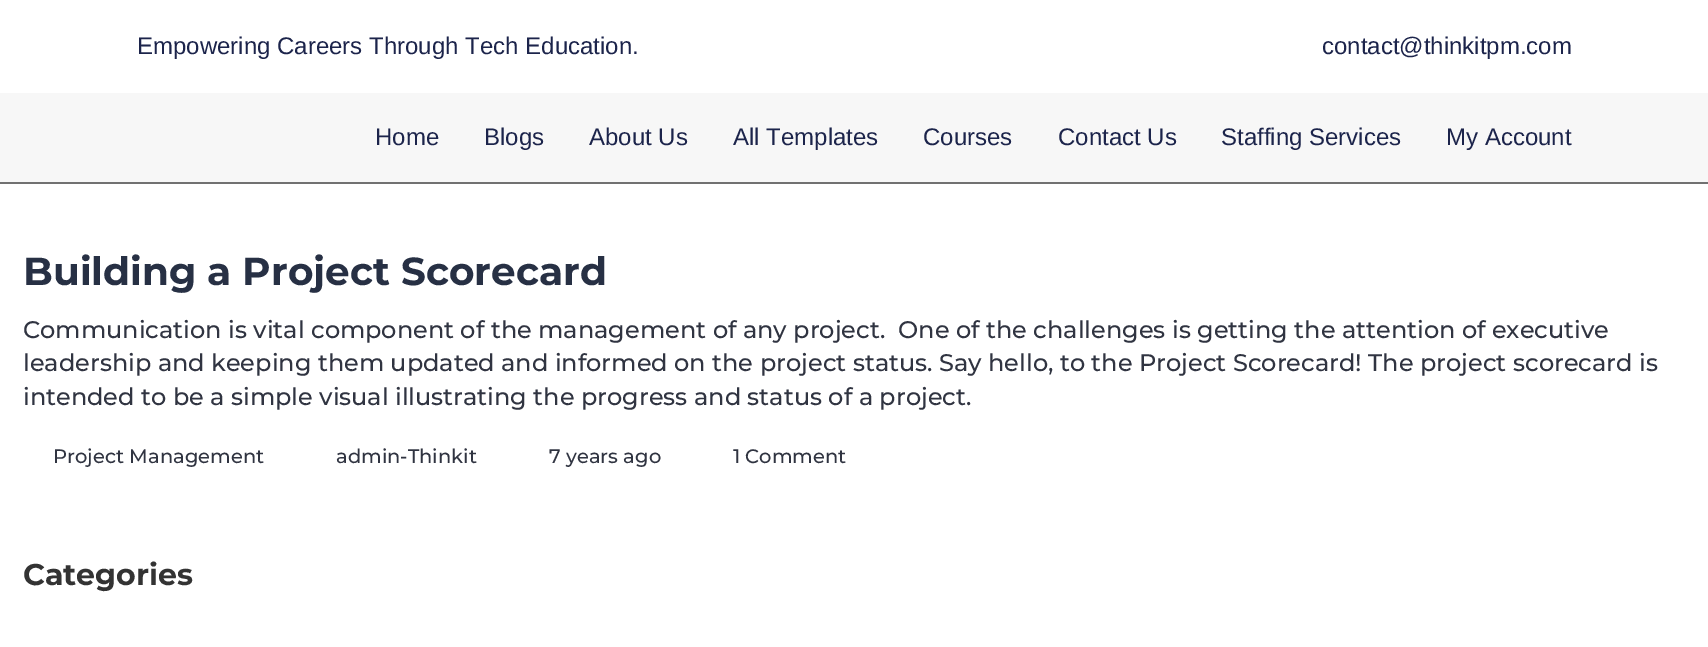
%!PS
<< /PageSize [1708 647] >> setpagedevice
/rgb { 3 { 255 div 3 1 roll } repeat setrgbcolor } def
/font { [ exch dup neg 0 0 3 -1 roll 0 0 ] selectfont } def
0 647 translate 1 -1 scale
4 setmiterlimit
255 255 255 rgb
0 0 1708 647 rectfill
247 247 247 rgb
0 93 1708 89 rectfill
113 113 113 rgb
0 182 1708 2 rectfill
/LiberationSans-Regular 24 font
28 36 75 rgb
[
  [(Empowering Careers Through Tech Education.) 137 54]
  [(contact@thinkitpm.com) 1322 54]
  [(Home) 375 145]
  [(Blogs) 484 145]
  [(About Us) 589 145]
  [(All Templates) 733 145]
  [(Courses) 923 145]
  [(Contact Us) 1058 145]
  [(Staffing Services) 1221 145]
  [(My Account) 1446 145]
] { aload pop moveto show } forall
/Montserrat-Bold 39 font
39 48 68 rgb
23 285 moveto (Building a Project Scorecard) show
/Montserrat-Medium 24 font
48 52 65 rgb
[
  [(Communication is vital component of the management of any project.  One of the challenges is getting the attention of executive) 23 338]
  [(leadership and keeping them updated and informed on the project status. Say hello, to the Project Scorecard! The project scorecard is) 23 371]
  [(intended to be a simple visual illustrating the progress and status of a project.) 23 405]
] { aload pop moveto show } forall
/Montserrat-Medium 19.5 font
[
  [(Project Management) 53 463]
  [(admin-Thinkit) 336 463]
  [(7 years ago) 549 463]
  [(1 Comment) 733 463]
] { aload pop moveto show } forall
/Montserrat-Bold 30 font
51 51 51 rgb
23 585 moveto (Categories) show
showpage
